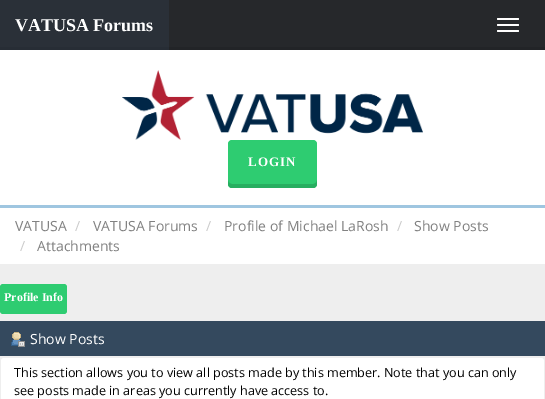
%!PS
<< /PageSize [545 399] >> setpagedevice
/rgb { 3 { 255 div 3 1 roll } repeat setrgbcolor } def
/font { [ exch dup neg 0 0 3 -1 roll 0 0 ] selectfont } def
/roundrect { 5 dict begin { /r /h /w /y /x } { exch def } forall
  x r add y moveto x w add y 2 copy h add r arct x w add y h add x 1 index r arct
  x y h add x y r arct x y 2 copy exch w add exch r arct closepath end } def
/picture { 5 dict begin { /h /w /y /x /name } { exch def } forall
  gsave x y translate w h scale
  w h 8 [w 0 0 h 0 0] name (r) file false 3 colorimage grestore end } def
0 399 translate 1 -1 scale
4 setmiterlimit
238 238 238 rgb
0 0 545 399 rectfill
[
  [169 0 376 47 38 40 43]
  [169 47 376 3 34 36 39]
  [0 0 169 47 42 48 56]
  [0 47 169 3 39 45 53]
] { aload pop rgb rectfill } forall
255 255 255 rgb
497 18 22 2 1 roundrect fill
497 24 22 2 1 roundrect fill
497 30 22 2 1 roundrect fill
0 50 545 155 rectfill
159 198 224 rgb
0 205 545 3 rectfill
(img/1.rgb) 122 70 301 70 picture
46 204 113 rgb
228 140 89 48 4 roundrect fill
39 174 96 rgb
228 180 moveto 228 184 lineto 228 186 230 188 232 188 curveto 313 188 lineto 315 188 317 186 317 184 curveto 317 180 lineto 317 182 315 184 313 184 curveto 232 184 lineto 230 184 228 182 228 180 curveto closepath fill
255 255 255 rgb
0 208 545 56 rectfill
46 204 113 rgb
0 284 67 30 3 roundrect fill
52 73 94 rgb
0 321 545 35 rectfill
(img/2.rgb) 11 332 14 15 picture
255 255 255 rgb
1 358 543 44 3 roundrect fill
/LiberationSerif-Bold 18 font
15 31 moveto (VATUSA Forums) show
/LiberationSerif-Bold 13 font
248 166 moveto 1 0 (LOGIN) ashow
/OpenSans-Regular 14 font
130 130 130 rgb
15 231 moveto (VATUSA) show
204 204 204 rgb
75 231 moveto (/) show
130 130 130 rgb
93 231 moveto (VATUSA Forums) show
204 204 204 rgb
206 231 moveto (/) show
130 130 130 rgb
224 231 moveto (Profile of Michael LaRosh) show
204 204 204 rgb
397 231 moveto (/) show
130 130 130 rgb
414 231 moveto (Show Posts) show
204 204 204 rgb
20 251 moveto (/) show
130 130 130 rgb
37 251 moveto (Attachments) show
/LiberationSerif-Bold 12 font
255 255 255 rgb
4 301 moveto (Profile Info) show
/OpenSans-Regular 14 font
30 344 moveto (Show Posts) show
/OpenSans-Regular 12.6 font
0 0 0 rgb
14 377 moveto (This section allows you to view all posts made by this member. Note that you can only) show
14 395 moveto (see posts made in areas you currently have access to.) show
showpage
